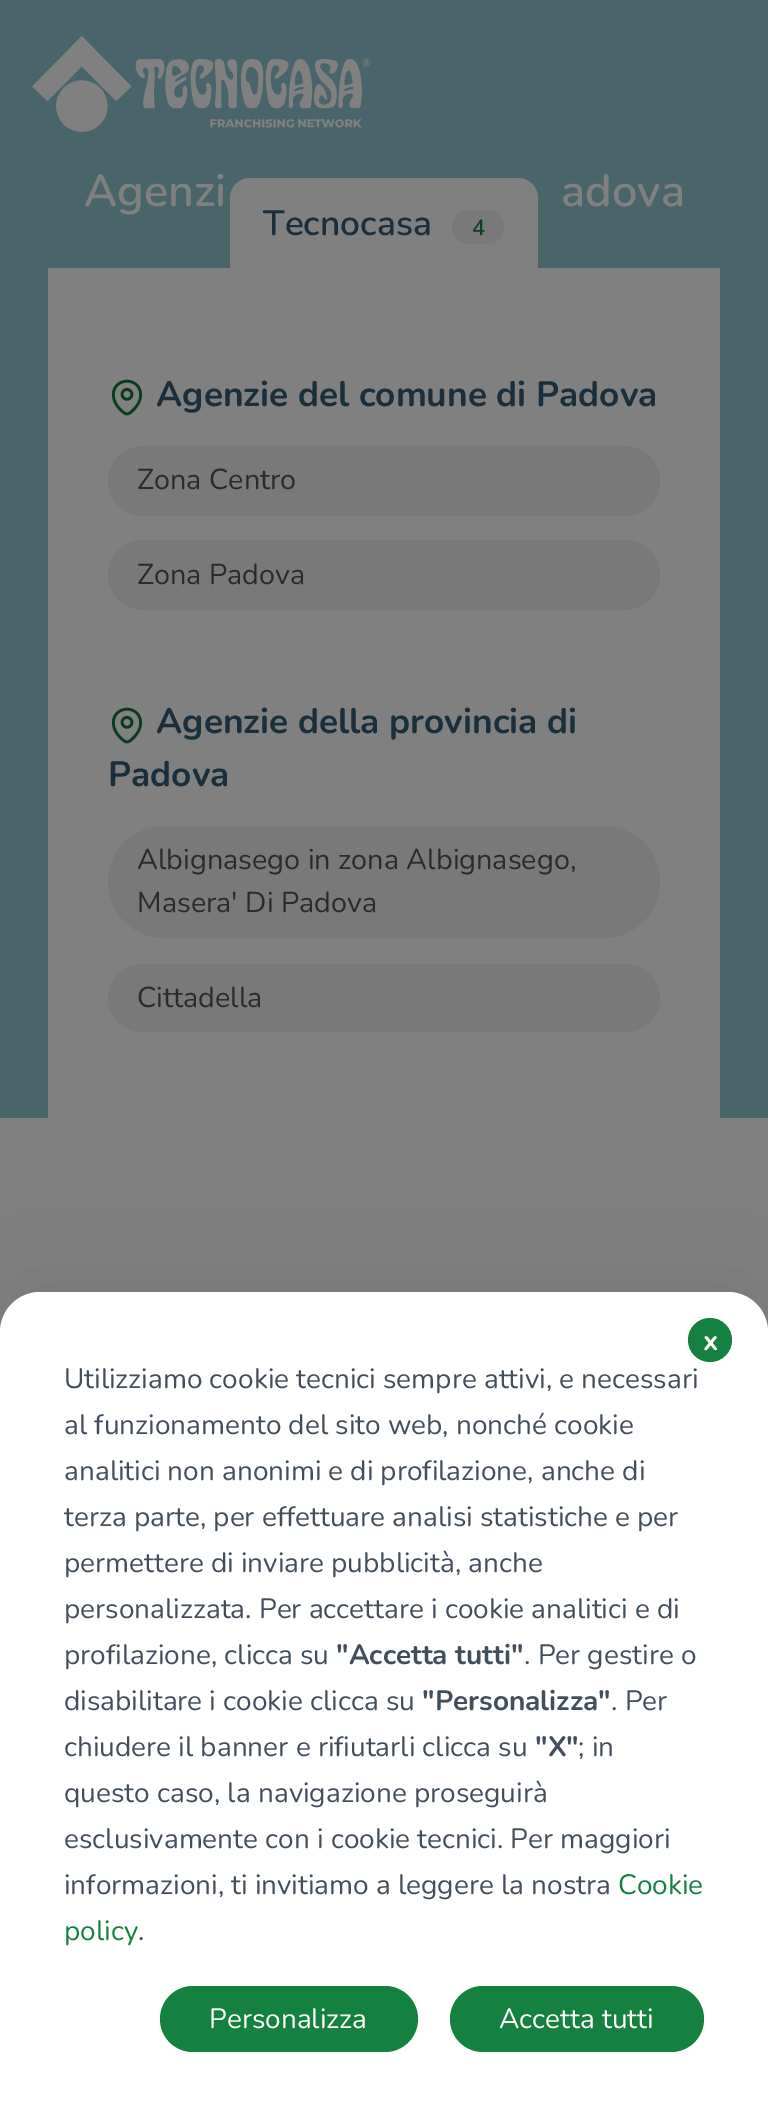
%!PS
<< /PageSize [768 2116] /PageUsesTransparency true >> setpagedevice
/rgb { 3 { 255 div 3 1 roll } repeat setrgbcolor } def
/font { [ exch dup neg 0 0 3 -1 roll 0 0 ] selectfont } def
/alpha { dup .setfillconstantalpha .setstrokeconstantalpha } def
/circle { newpath 0 360 arc closepath } def
/roundrect { 5 dict begin { /r /h /w /y /x } { exch def } forall
  x r add y moveto x w add y 2 copy h add r arct x w add y h add x 1 index r arct
  x y h add x y r arct x y 2 copy exch w add exch r arct closepath end } def
/shadow { 12 dict begin { /a /b /q /h /w /y /x } { exch def } forall gsave /was 0 def
  9 -2 -9 { dup b mul 4 div /e exch def 1 sub .425 mul 2.718 exch exp 1 add a .99 .min exch div /now exch def
    1 1 now sub 1 was sub div sub alpha /was now def
    w h .min e 2 mul add 0 gt { x e sub y e sub w e 2 mul add h e 2 mul add
      q e add b .6 mul add w h .min 2 div e add .min 0 .max roundrect fill } if } for grestore end } def
/picture { 5 dict begin { /h /w /y /x /name } { exch def } forall
  gsave x y translate w h scale
  w h 8 [w 0 0 h 0 0] name (r) file false 3 colorimage grestore end } def
0 .pushpdf14devicefilter
0 2116 translate 1 -1 scale
4 setmiterlimit
128 128 128 rgb
0 0 768 2116 rectfill
73 101 106 rgb
0 0 768 1118 rectfill
(img/1.rgb) 32 36 338 96 picture
128 128 128 rgb
48 268 672 850 rectfill
250 178 moveto 518 178 lineto 529 178 538 187 538 198 curveto 538 268 lineto 230 268 lineto 230 198 lineto 230 187 239 178 250 178 curveto closepath fill
121 121 121 rgb
452 210 52 34 17 roundrect fill
(img/2.rgb) 111 379 32 37 picture
108 446 552 70 35 roundrect fill
108 540 552 70 35 roundrect fill
(img/2.rgb) 111 707 32 37 picture
108 826 552 112 56 roundrect fill
108 964 552 68 34 roundrect fill
0 0 0 rgb
0 1292 768 824 40 40 0.1 shadow
255 255 255 rgb
40 1292 moveto 728 1292 lineto 750 1292 768 1310 768 1332 curveto 768 2116 lineto 0 2116 lineto 0 1332 lineto 0 1310 18 1292 40 1292 curveto closepath fill
21 129 64 rgb
710 1340 22 circle fill
160 1986 258 66 33 roundrect fill
450 1986 254 66 33 roundrect fill
/Nunito-SemiBold 45 font
128 128 128 rgb
84 206 moveto (Agenzi) show
561 206 moveto (adova) show
/Nunito-SemiBold 35.25 font
27 46 59 rgb
263 235 moveto (Tecnocasa) show
/Nunito-SemiBold 22 font
11 65 32 rgb
472 235 moveto (4) show
/Nunito-Bold 35.25 font
27 46 59 rgb
156 406 moveto (Agenzie del comune di Padova) show
/Nunito-Regular 28.75 font
43 43 43 rgb
137 489 moveto (Zona Centro) show
137 584 moveto (Zona Padova) show
/Nunito-Bold 35.25 font
27 46 59 rgb
156 733 moveto (Agenzie della provincia di) show
108 786 moveto (Padova) show
/Nunito-Regular 28.75 font
43 43 43 rgb
[
  [(Albignasego in zona Albignasego,) 137 869]
  [(Masera' Di Padova) 137 912]
  [(Cittadella) 137 1007]
] { aload pop moveto show } forall
/Nunito-Bold 28 font
255 255 255 rgb
703 1350 moveto (x) show
/Nunito-Regular 28 font
66 78 91 rgb
[
  [(Utilizziamo cookie tecnici sempre attivi, e necessari) 64 1388]
  [(al funzionamento del sito web, nonché cookie) 64 1434]
  [(analitici non anonimi e di profilazione, anche di) 64 1480]
  [(terza parte, per effettuare analisi statistiche e per) 64 1526]
  [(permettere di inviare pubblicità, anche) 64 1572]
  [(personalizzata. Per accettare i cookie analitici e di) 64 1618]
  [(profilazione, clicca su) 64 1664]
] { aload pop moveto show } forall
/Nunito-Bold 28 font
336 1664 moveto ("Accetta tutti") show
/Nunito-Regular 28 font
524 1664 moveto (. Per gestire o) show
64 1710 moveto (disabilitare i cookie clicca su) show
/Nunito-Bold 28 font
422 1710 moveto ("Personalizza") show
/Nunito-Regular 28 font
611 1710 moveto (. Per) show
64 1756 moveto (chiudere il banner e rifiutarli clicca su) show
/Nunito-Bold 28 font
535 1756 moveto ("X") show
/Nunito-Regular 28 font
[
  [(; in) 578 1756]
  [(questo caso, la navigazione proseguirà) 64 1802]
  [(esclusivamente con i cookie tecnici. Per maggiori) 64 1848]
  [(informazioni, ti invitiamo a leggere la nostra) 64 1894]
] { aload pop moveto show } forall
21 129 64 rgb
618 1894 moveto (Cookie) show
64 1940 moveto (policy) show
66 78 91 rgb
138 1940 moveto (.) show
255 255 255 rgb
209 2028 moveto (Personalizza) show
499 2028 moveto (Accetta tutti) show
.poppdf14devicefilter showpage
